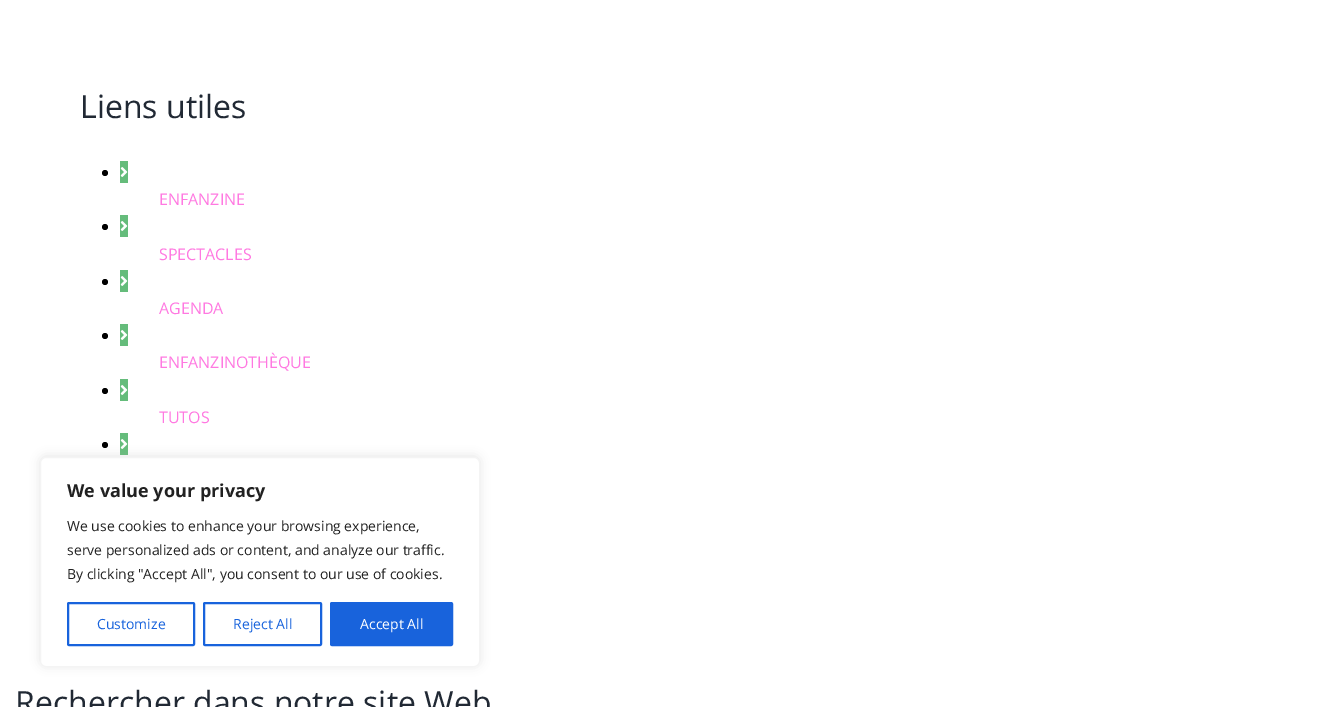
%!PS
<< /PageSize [1334 707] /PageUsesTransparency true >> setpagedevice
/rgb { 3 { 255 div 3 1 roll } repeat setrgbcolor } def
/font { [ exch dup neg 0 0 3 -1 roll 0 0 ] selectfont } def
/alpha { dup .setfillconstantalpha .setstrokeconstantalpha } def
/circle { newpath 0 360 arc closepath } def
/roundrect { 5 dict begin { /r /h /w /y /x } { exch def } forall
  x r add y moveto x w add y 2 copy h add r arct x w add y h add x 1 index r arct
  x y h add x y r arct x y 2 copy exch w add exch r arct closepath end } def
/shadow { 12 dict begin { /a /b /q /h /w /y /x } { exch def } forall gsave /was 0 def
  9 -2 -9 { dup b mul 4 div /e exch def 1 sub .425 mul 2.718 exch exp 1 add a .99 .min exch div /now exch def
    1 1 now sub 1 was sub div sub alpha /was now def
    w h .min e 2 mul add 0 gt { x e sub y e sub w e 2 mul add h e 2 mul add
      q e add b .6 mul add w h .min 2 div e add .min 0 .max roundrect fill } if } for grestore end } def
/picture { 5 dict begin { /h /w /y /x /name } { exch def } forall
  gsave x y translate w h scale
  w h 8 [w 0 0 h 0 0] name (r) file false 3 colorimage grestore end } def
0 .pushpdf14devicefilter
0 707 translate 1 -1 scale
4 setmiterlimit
255 255 255 rgb
0 0 1334 707 rectfill
0 0 0 rgb
105 173 3 circle fill
101 188 123 rgb
120 161 8 22 rectfill
(img/1.rgb) 120 167 8 10 picture
0 0 0 rgb
105 227 3 circle fill
101 188 123 rgb
120 215 8 22 rectfill
(img/1.rgb) 120 221 8 10 picture
0 0 0 rgb
105 282 3 circle fill
101 188 123 rgb
120 270 8 22 rectfill
(img/1.rgb) 120 276 8 10 picture
0 0 0 rgb
105 336 3 circle fill
101 188 123 rgb
120 324 8 22 rectfill
(img/1.rgb) 120 330 8 10 picture
0 0 0 rgb
105 391 3 circle fill
101 188 123 rgb
120 379 8 22 rectfill
(img/1.rgb) 120 385 8 10 picture
0 0 0 rgb
105 445 3 circle fill
101 188 123 rgb
120 433 8 22 rectfill
(img/1.rgb) 120 439 8 10 picture
172 171 171 rgb
40 456 440 210 6 5 0.3 shadow
255 255 255 rgb
40.5 457.5 439 209 5.5 roundrect gsave fill grestore
244 244 244 rgb
stroke
24 99 220 rgb
2 setlinewidth
68 603 126 42 1 roundrect stroke
204 603 117 42 1 roundrect stroke
331 603 121 42 1 roundrect gsave fill grestore
stroke
/OpenSans-Regular 32 font
33 41 52 rgb
80 118 moveto (Liens utiles) show
/OpenSans-Regular 16 font
255 121 225 rgb
[
  [(ENFANZINE) 159 205]
  [(SPECTACLES) 159 260]
  [(AGENDA) 159 314]
  [(ENFANZINOTHÈQUE) 159 368]
  [(TUTOS) 159 423]
] { aload pop moveto show } forall
/OpenSans-Regular 32 font
33 41 52 rgb
15 714 moveto (Rechercher dans notre site Web) show
/OpenSans-Bold 18 font
33 33 33 rgb
67 497 moveto (We value your privacy) show
/OpenSans-Regular 14 font
[
  [(We use cookies to enhance your browsing experience,) 67 531]
  [(serve personalized ads or content, and analyze our traffic.) 67 555]
  [(By clicking "Accept All", you consent to our use of cookies.) 67 579]
] { aload pop moveto show } forall
24 99 220 rgb
97 629 moveto (Customize) show
233 629 moveto (Reject All) show
255 255 255 rgb
360 629 moveto (Accept All) show
.poppdf14devicefilter showpage
